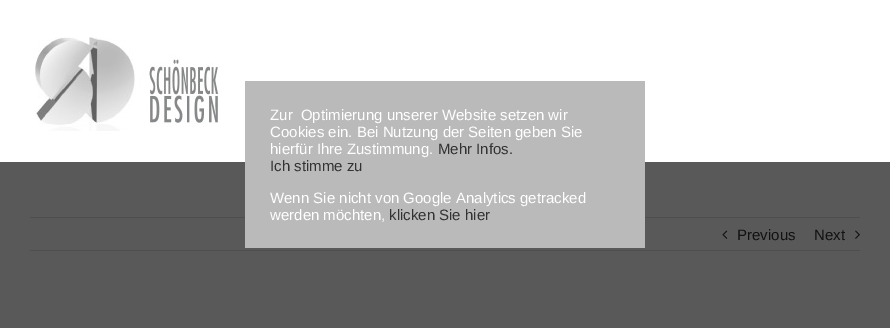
%!PS
<< /PageSize [890 328] >> setpagedevice
/rgb { 3 { 255 div 3 1 roll } repeat setrgbcolor } def
/font { [ exch dup neg 0 0 3 -1 roll 0 0 ] selectfont } def
/picture { 5 dict begin { /h /w /y /x /name } { exch def } forall
  gsave x y translate w h scale
  w h 8 [w 0 0 h 0 0] name (r) file false 3 colorimage grestore end } def
0 328 translate 1 -1 scale
4 setmiterlimit
89 89 89 rgb
0 0 890 328 rectfill
[
  [0 0 890 162 255 255 255]
  [30 217 830 1 78 78 78]
  [245 81 400 167 186 186 186]
] { aload pop rgb rectfill } forall
(img/1.rgb) 35 37 185 94 picture
78 78 78 rgb
30 250 830 1 rectfill
(img/2.rgb) 722 230 6 9 picture
(img/3.rgb) 855 230 5 9 picture
/LiberationSans-Regular 15 font
255 255 255 rgb
[
  [(Zur  Optimierung unserer Website setzen wir) 270 120]
  [(Cookies ein. Bei Nutzung der Seiten geben Sie) 270 137]
  [(hierfür Ihre Zustimmung.) 270 154]
] { aload pop moveto show } forall
51 51 51 rgb
438 154 moveto (Mehr Infos.) show
270 171 moveto (Ich stimme zu) show
255 255 255 rgb
270 203 moveto (Wenn Sie nicht von Google Analytics getracked) show
270 220 moveto (werden möchten,) show
51 51 51 rgb
389 220 moveto (klicken Sie hier) show
18 18 18 rgb
737 240 moveto (Previous) show
814 240 moveto (Next) show
showpage
